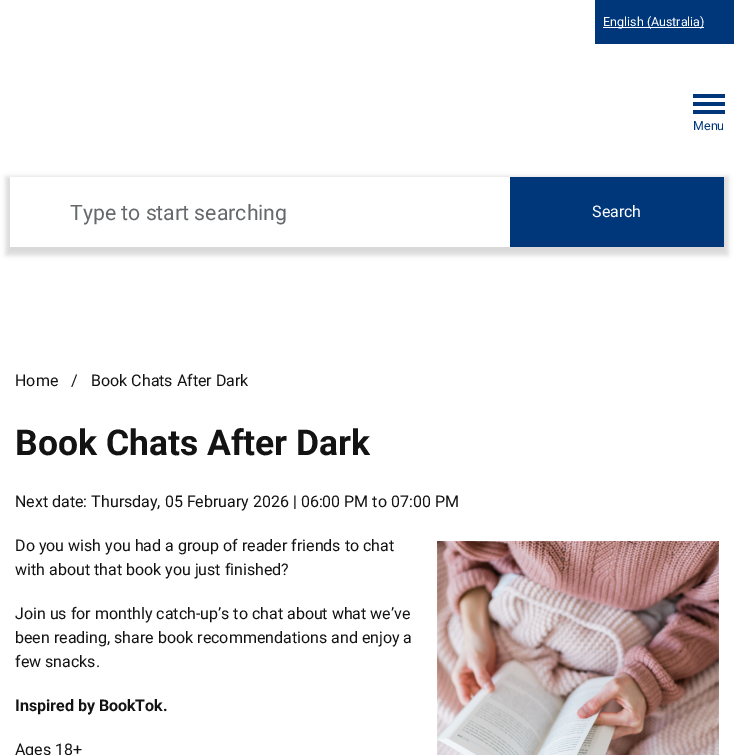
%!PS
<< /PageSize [734 755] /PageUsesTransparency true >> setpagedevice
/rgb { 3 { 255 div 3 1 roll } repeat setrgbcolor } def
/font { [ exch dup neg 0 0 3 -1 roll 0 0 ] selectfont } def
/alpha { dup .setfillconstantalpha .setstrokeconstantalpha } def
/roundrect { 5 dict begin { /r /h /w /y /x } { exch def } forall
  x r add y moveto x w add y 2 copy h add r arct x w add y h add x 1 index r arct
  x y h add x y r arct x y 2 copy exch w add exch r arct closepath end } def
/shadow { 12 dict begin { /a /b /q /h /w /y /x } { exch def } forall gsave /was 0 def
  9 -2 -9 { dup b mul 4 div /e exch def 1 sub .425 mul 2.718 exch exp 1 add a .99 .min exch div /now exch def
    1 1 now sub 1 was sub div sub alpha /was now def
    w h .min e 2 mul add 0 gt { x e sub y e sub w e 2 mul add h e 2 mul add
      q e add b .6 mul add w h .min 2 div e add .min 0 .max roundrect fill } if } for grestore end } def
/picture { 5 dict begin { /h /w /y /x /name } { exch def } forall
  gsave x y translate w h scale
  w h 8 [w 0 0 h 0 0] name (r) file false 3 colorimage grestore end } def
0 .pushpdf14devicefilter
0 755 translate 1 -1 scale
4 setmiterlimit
255 255 255 rgb
0 0 734 755 rectfill
[
  [595 0 139 44 0 55 123]
  [603 27 101 1 255 255 255]
  [693 102 32 4 0 55 123]
  [693 94 32 4 0 55 123]
  [693 110 32 4 0 55 123]
] { aload pop rgb rectfill } forall
gsave
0 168 moveto 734 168 lineto 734 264 lineto 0 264 lineto closepath 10 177 moveto 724 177 lineto 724 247 lineto 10 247 lineto closepath eoclip newpath
0 0 0 rgb
6 177 722 78 0 2.5 0.15 shadow
grestore
510 177 214 70 rectfill
(img/1.rgb) 437 541 282 214 picture
/Roboto-Regular 12.5 font
255 255 255 rgb
603 26 moveto (English \(Australia\)) show
0 55 123 rgb
693 130 moveto (Menu) show
/Roboto-Regular 21.25 font
101 105 108 rgb
70 220 moveto (Type to start searching) show
/Roboto-Regular 16 font
255 255 255 rgb
592 217 moveto (Search) show
19 19 19 rgb
[
  [(Home) 15 386]
  [(/) 71 386]
  [(Book Chats After Dark) 91 386]
] { aload pop moveto show } forall
/Roboto-Bold 35.5 font
15 455 moveto (Book Chats After Dark) show
/Roboto-Regular 16 font
[
  [(Next date: Thursday, 05 February 2026 | 06:00 PM to 07:00 PM) 15 507]
  [(Do you wish you had a group of reader friends to chat) 15 551]
  [(with about that book you just finished?) 15 575]
  [(Join us for monthly catch-up’s to chat about what we’ve) 15 619]
  [(been reading, share book recommendations and enjoy a) 15 643]
  [(few snacks.) 15 667]
] { aload pop moveto show } forall
/Roboto-Bold 16 font
15 711 moveto (Inspired by BookTok.) show
/Roboto-Regular 16 font
15 755 moveto (Ages 18+) show
.poppdf14devicefilter showpage
